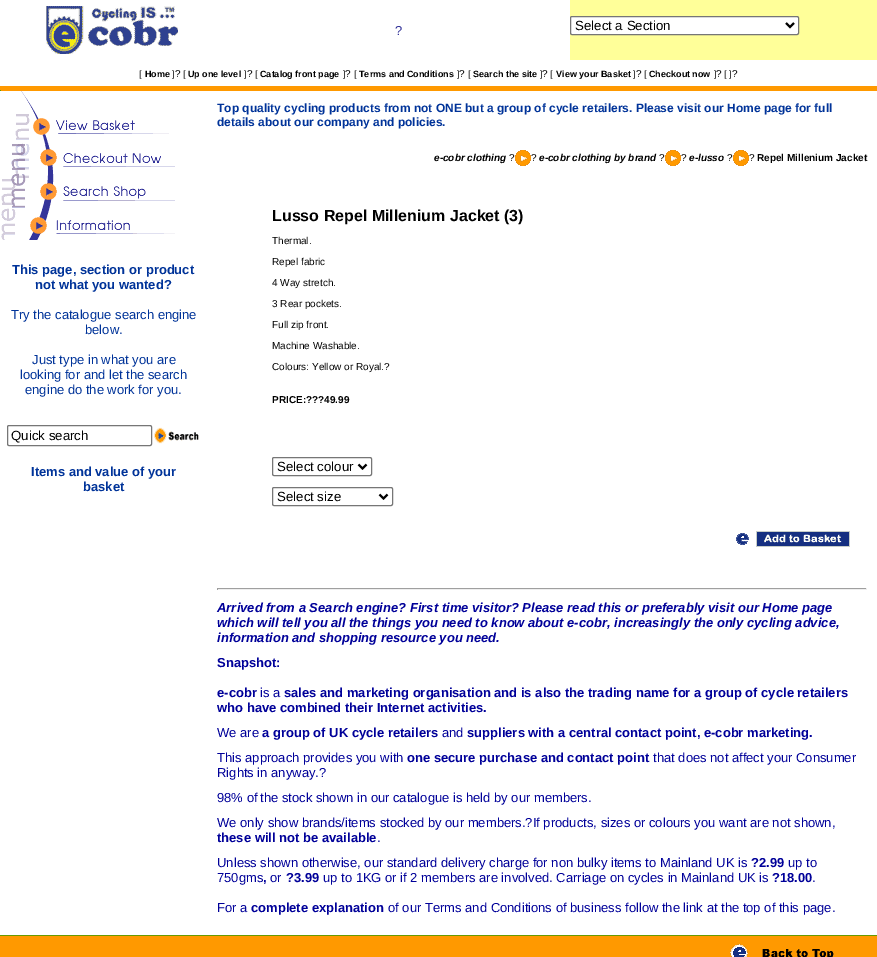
%!PS
<< /PageSize [877 957] >> setpagedevice
/rgb { 3 { 255 div 3 1 roll } repeat setrgbcolor } def
/font { [ exch dup neg 0 0 3 -1 roll 0 0 ] selectfont } def
/roundrect { 5 dict begin { /r /h /w /y /x } { exch def } forall
  x r add y moveto x w add y 2 copy h add r arct x w add y h add x 1 index r arct
  x y h add x y r arct x y 2 copy exch w add exch r arct closepath end } def
/picture { 5 dict begin { /h /w /y /x /name } { exch def } forall
  gsave x y translate w h scale
  w h 8 [w 0 0 h 0 0] name (r) file false 3 colorimage grestore end } def
0 957 translate 1 -1 scale
4 setmiterlimit
255 255 153 rgb
0 0 877 957 rectfill
255 255 255 rgb
0 0 570 60 rectfill
(img/1.rgb) 46 6 132 48 picture
570.5 16.5 228 18 1.5 roundrect gsave fill grestore
118 118 118 rgb
stroke
0 0 0 rgb
2 setlinewidth
786 23 moveto 790 27 lineto 794 23 lineto stroke
[
  [0 60 877 26 255 255 255]
  [0 86 877 5 255 153 0]
  [0 90 1 1 103 154 1]
  [0 91 877 844 255 255 255]
] { aload pop rgb rectfill } forall
(img/2.rgb) 15 91 154 48 picture
(img/3.rgb) 11 139 164 32 picture
(img/4.rgb) 1 171 174 36 picture
(img/5.rgb) 1 207 174 33 picture
118 118 118 rgb
1 setlinewidth
7.5 425.5 144 20 1.5 roundrect stroke
(img/6.rgb) 154 427 45 17 picture
(img/7.rgb) 515 150 16 16 picture
(img/7.rgb) 665 150 16 16 picture
(img/7.rgb) 733 150 16 16 picture
272.5 457.5 99 18 1.5 roundrect stroke
0 0 0 rgb
2 setlinewidth
358.5 464.5 moveto 362.5 468.5 lineto 366.5 464.5 lineto stroke
118 118 118 rgb
1 setlinewidth
272.5 487.5 120 18 1.5 roundrect stroke
0 0 0 rgb
2 setlinewidth
379.5 494.5 moveto 383.5 498.5 lineto 387.5 494.5 lineto stroke
(img/8.rgb) 736 531 114 16 picture
[
  [217 588 650 1 159 159 159]
  [866 588 1 2 238 238 238]
  [217 589 650 1 238 238 238]
  [217 588 1 2 159 159 159]
  [0 935 877 1 103 154 1]
  [0 936 877 21 255 153 0]
] { aload pop rgb rectfill } forall
(img/9.rgb) 730 944 104 13 picture
/LiberationSans-Regular 13.25 font
0 0 0 rgb
575 30 moveto (Select a Section) show
/LiberationSans-Regular 13 font
51 51 153 rgb
395 35 moveto (?) show
/LiberationSans-Regular 9 font
0 0 0 rgb
139 77 moveto ([) show
/LiberationSans-Bold 9 font
145 77 moveto (Home) show
/LiberationSans-Regular 9 font
172 77 moveto (]) show
/LiberationSans-Regular 10 font
175 77 moveto (?) show
/LiberationSans-Regular 9 font
183 77 moveto ([) show
/LiberationSans-Bold 9 font
188 77 moveto (Up one level) show
/LiberationSans-Regular 9 font
244 77 moveto (]) show
/LiberationSans-Regular 10 font
247 77 moveto (?) show
/LiberationSans-Regular 9 font
255 77 moveto ([) show
/LiberationSans-Bold 9 font
260 77 moveto (Catalog front page) show
/LiberationSans-Regular 9 font
343 77 moveto (]) show
/LiberationSans-Regular 10 font
345 77 moveto (?) show
/LiberationSans-Regular 9 font
354 77 moveto ([) show
/LiberationSans-Bold 9 font
359 77 moveto (Terms and Conditions) show
/LiberationSans-Regular 9 font
457 77 moveto (]) show
/LiberationSans-Regular 10 font
459 77 moveto (?) show
/LiberationSans-Regular 9 font
468 77 moveto ([) show
/LiberationSans-Bold 9 font
473 77 moveto (Search the site) show
/LiberationSans-Regular 9 font
540 77 moveto (]) show
/LiberationSans-Regular 10 font
542 77 moveto (?) show
/LiberationSans-Regular 9 font
550 77 moveto ([) show
/LiberationSans-Bold 9 font
556 77 moveto (View your Basket) show
/LiberationSans-Regular 9 font
633 77 moveto (]) show
/LiberationSans-Regular 10 font
636 77 moveto (?) show
/LiberationSans-Regular 9 font
644 77 moveto ([) show
/LiberationSans-Bold 9 font
649 77 moveto (Checkout now) show
/LiberationSans-Regular 9 font
714 77 moveto (]) show
/LiberationSans-Regular 10 font
716 77 moveto (?) show
/LiberationSans-Regular 9 font
724 77 moveto ([ ]) show
/LiberationSans-Regular 10 font
732 77 moveto (?) show
/LiberationSans-Bold 13 font
0 51 153 rgb
12 274 moveto (This page, section or product) show
35 289 moveto (not what you wanted?) show
/LiberationSans-Regular 13 font
[
  [(Try the catalogue search engine) 11 319]
  [(below.) 85 334]
  [(Just type in what you are) 32 364]
  [(looking for and let the search) 20 379]
  [(engine do the work for you.) 25 394]
] { aload pop moveto show } forall
/LiberationSans-Regular 13.25 font
0 0 0 rgb
11 440 moveto (Quick search) show
/LiberationSans-Bold 13 font
0 51 153 rgb
31 476 moveto (Items and value of your) show
83 491 moveto (basket) show
/LiberationSans-Bold 12 font
217 112 moveto (Top quality cycling products from not ONE but a group of cycle retailers. Please visit our Home page for full) show
217 126 moveto (details about our company and policies.) show
/LiberationSans-BoldItalic 10 font
0 0 0 rgb
434 161 moveto (e-cobr clothing) show
/LiberationSans-Regular 10 font
509 161 moveto (?) show
531 161 moveto (?) show
/LiberationSans-BoldItalic 10 font
539 161 moveto (e-cobr clothing by brand) show
/LiberationSans-Regular 10 font
659 161 moveto (?) show
681 161 moveto (?) show
/LiberationSans-BoldItalic 10 font
689 161 moveto (e-lusso) show
/LiberationSans-Regular 10 font
727 161 moveto (?) show
749 161 moveto (?) show
/LiberationSans-Bold 10 font
757 161 moveto (Repel Millenium Jacket) show
/LiberationSans-Bold 16 font
272 221 moveto (Lusso Repel Millenium Jacket \(3\)) show
/LiberationSans-Regular 10 font
[
  [(Thermal.) 272 244]
  [(Repel fabric) 272 265]
  [(4 Way stretch.) 272 286]
  [(3 Rear pockets.) 272 307]
  [(Full zip front.) 272 328]
  [(Machine Washable.) 272 349]
  [(Colours: Yellow or Royal.?) 272 370]
] { aload pop moveto show } forall
/LiberationSans-Bold 10 font
272 403 moveto (PRICE:???49.99) show
/LiberationSans-Regular 13.25 font
277 471 moveto (Select colour) show
277 501 moveto (Select size) show
/LiberationSans-BoldItalic 13 font
0 0 153 rgb
[
  [(Arrived from a Search engine? First time visitor? Please read this or preferably visit our Home page) 217 612]
  [(which will tell you all the things you need to know about e-cobr, increasingly the only cycling advice,) 217 627]
  [(information and shopping resource you need.) 217 642]
] { aload pop moveto show } forall
/LiberationSans-Bold 13 font
217 667 moveto (Snapshot:) show
217 697 moveto (e-cobr) show
/LiberationSans-Regular 13 font
260 697 moveto (is a) show
/LiberationSans-Bold 13 font
284 697 moveto (sales and marketing organisation and is also the trading name for a group of cycle retailers) show
217 712 moveto (who have combined their Internet activities.) show
/LiberationSans-Regular 13 font
217 737 moveto (We are) show
/LiberationSans-Bold 13 font
262 737 moveto (a group of UK cycle retailers) show
/LiberationSans-Regular 13 font
442 737 moveto (and) show
/LiberationSans-Bold 13 font
467 737 moveto (suppliers with a central contact point, e-cobr marketing.) show
/LiberationSans-Regular 13 font
217 762 moveto (This approach provides you with) show
/LiberationSans-Bold 13 font
407 762 moveto (one secure purchase and contact point) show
/LiberationSans-Regular 13 font
[
  [(that does not affect your Consumer) 653 762]
  [(Rights in anyway.?) 217 777]
  [(98% of) 217 802]
  [(the stock shown in our catalogue is held by our members.) 260 802]
  [(We only show brands/items stocked by our members.?If products, sizes or colours you want are not shown,) 217 827]
] { aload pop moveto show } forall
/LiberationSans-Bold 13 font
217 842 moveto (these will not be available) show
/LiberationSans-Regular 13 font
377 842 moveto (.) show
217 867 moveto (Unless shown otherwise, our standard delivery charge for non bulky items to Mainland UK is) show
/LiberationSans-Bold 13 font
751 867 moveto (?2.99) show
/LiberationSans-Regular 13 font
788 867 moveto (up to) show
217 882 moveto (750gms) show
/LiberationSans-Bold 13 font
263 882 moveto (,) show
/LiberationSans-Regular 13 font
270 882 moveto (or) show
/LiberationSans-Bold 13 font
286 882 moveto (?3.99) show
/LiberationSans-Regular 13 font
323 882 moveto (up to 1KG or if 2 members are involved. Carriage on cycles in Mainland UK is) show
/LiberationSans-Bold 13 font
772 882 moveto (?18.00) show
/LiberationSans-Regular 13 font
812 882 moveto (.) show
217 912 moveto (For a) show
/LiberationSans-Bold 13 font
251 912 moveto (complete explanation) show
/LiberationSans-Regular 13 font
388 912 moveto (of our Terms and Conditions of business follow the link at the top of this page.) show
showpage
